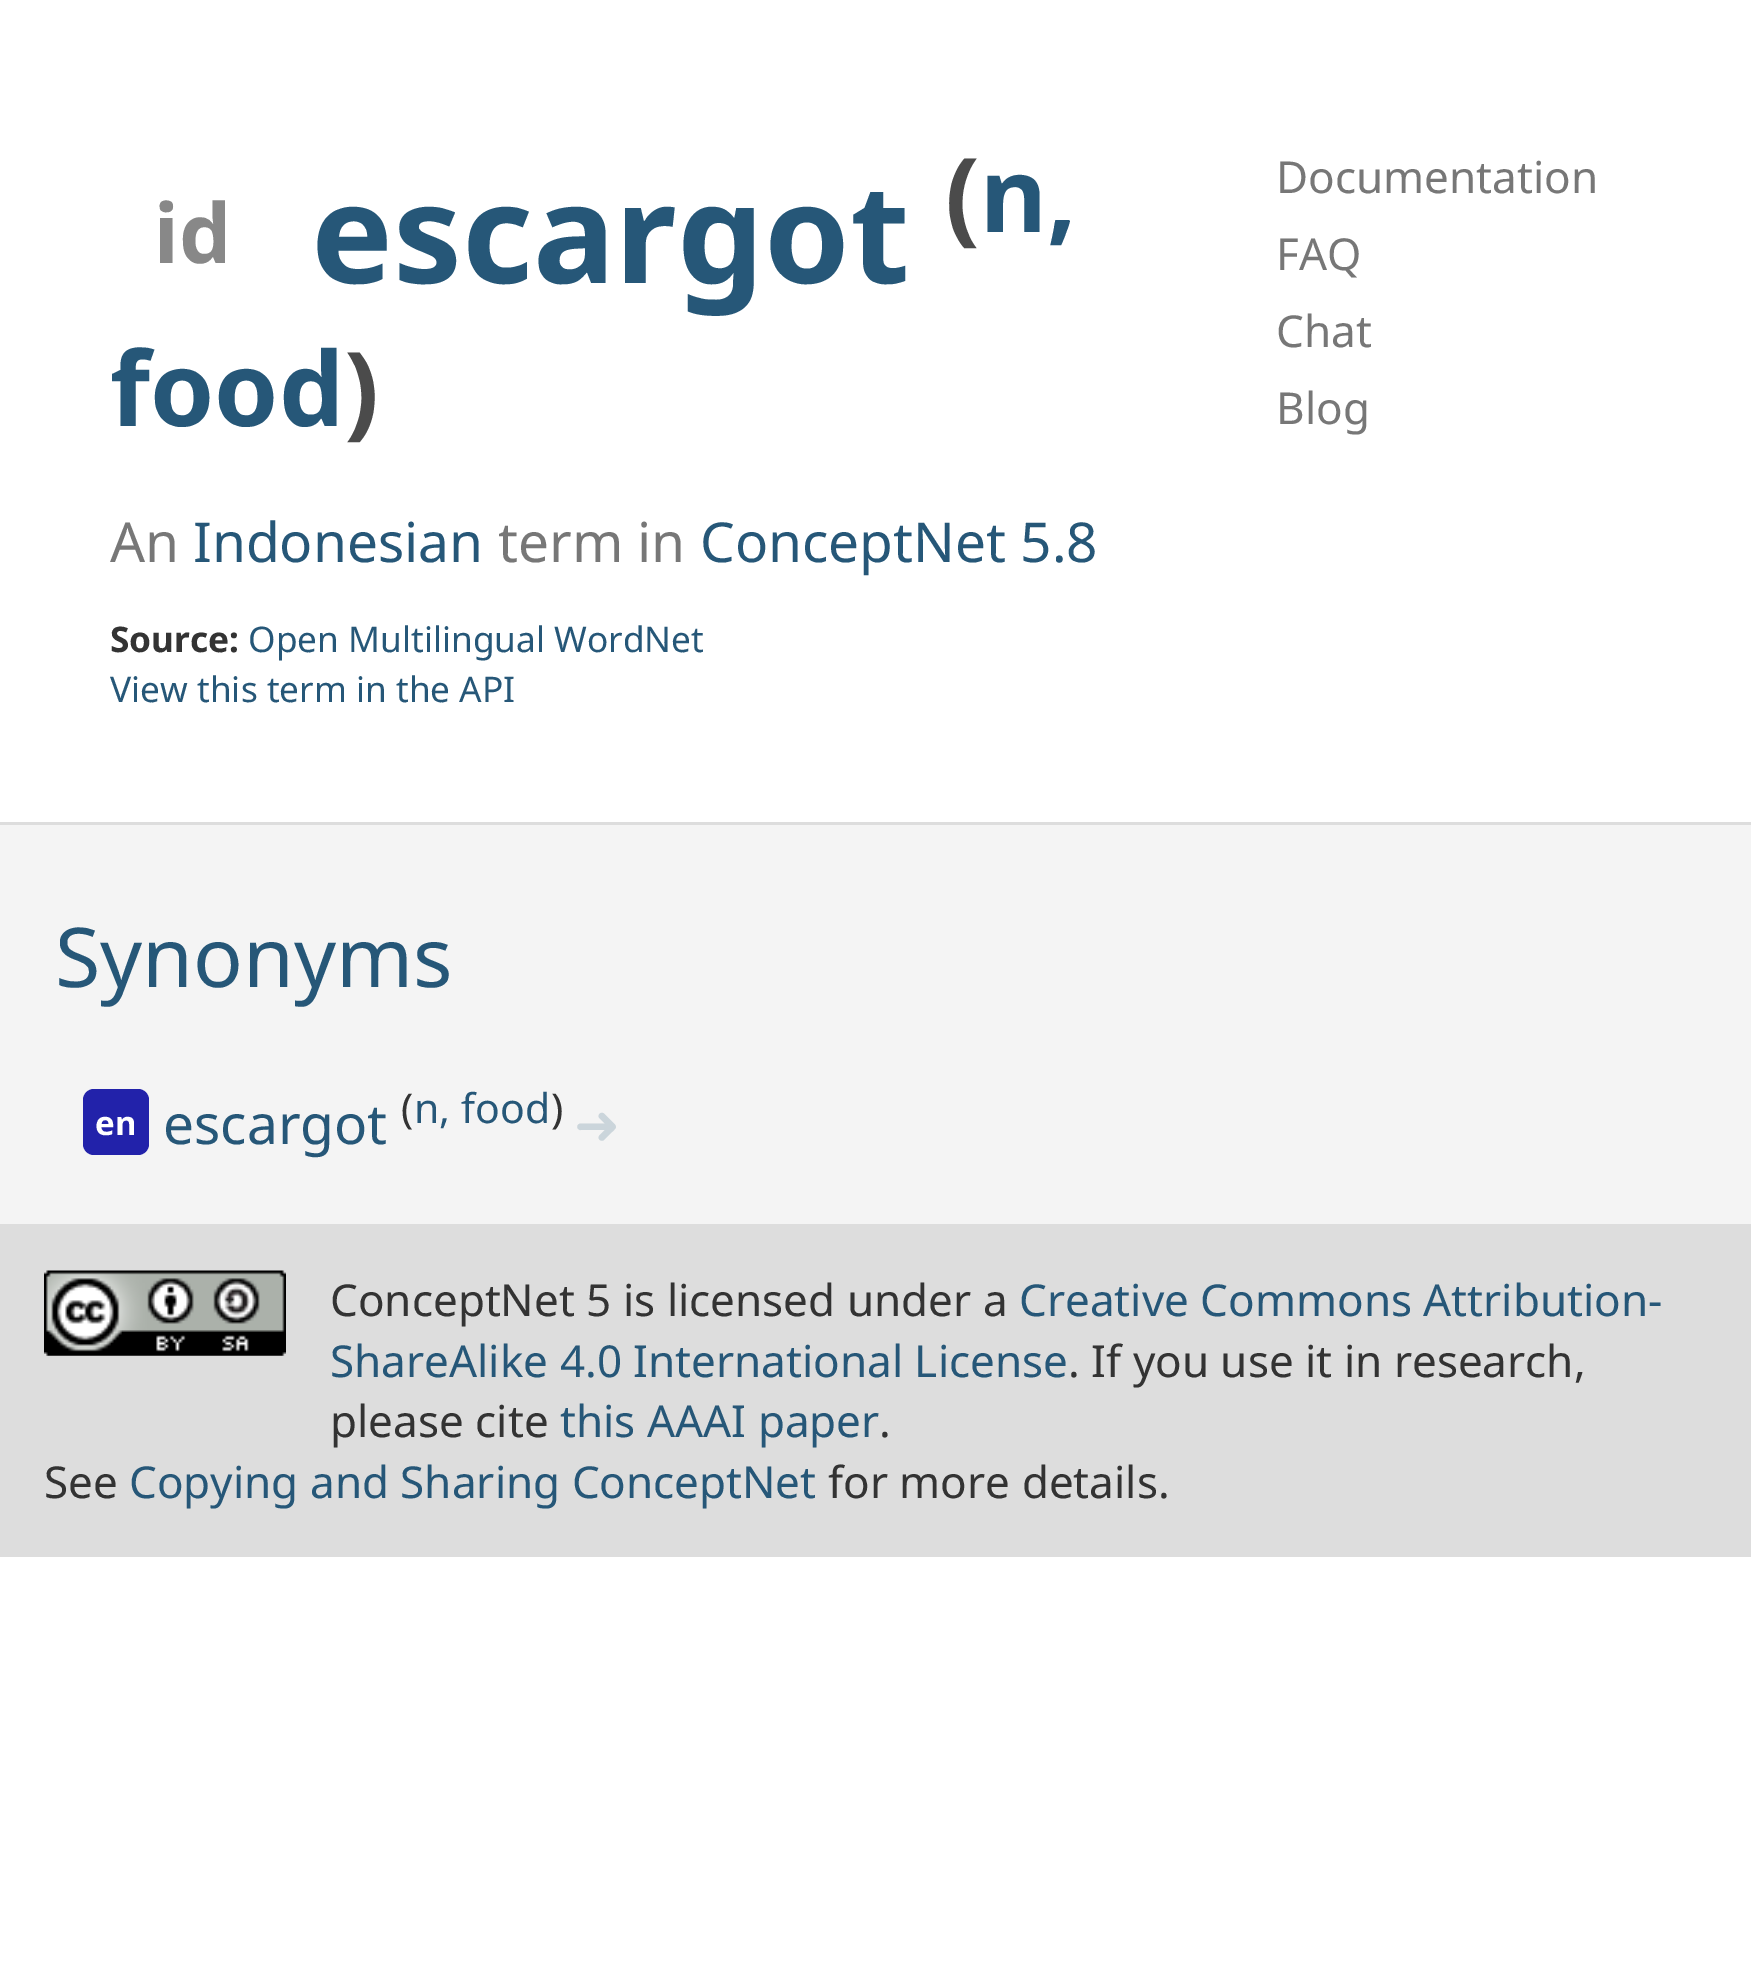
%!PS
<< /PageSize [1751 1979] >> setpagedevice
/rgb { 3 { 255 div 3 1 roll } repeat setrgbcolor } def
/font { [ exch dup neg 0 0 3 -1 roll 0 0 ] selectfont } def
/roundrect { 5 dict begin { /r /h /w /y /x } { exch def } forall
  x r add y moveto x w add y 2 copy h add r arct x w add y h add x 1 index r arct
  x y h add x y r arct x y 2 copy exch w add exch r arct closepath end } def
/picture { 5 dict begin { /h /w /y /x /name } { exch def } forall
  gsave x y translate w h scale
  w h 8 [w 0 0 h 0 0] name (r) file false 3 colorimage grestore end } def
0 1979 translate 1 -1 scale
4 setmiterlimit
255 255 255 rgb
0 0 1751 1979 rectfill
[
  [0 825 1751 399 244 244 244]
  [0 822 1751 3 221 221 221]
  [0 1224 1751 333 221 221 221]
] { aload pop rgb rectfill } forall
34 34 170 rgb
83 1089 66 66 11 roundrect fill
(img/1.rgb) 44 1270 242 86 picture
/NotoSans-Bold 82.5 font
136 136 136 rgb
154 263 moveto (id) show
/NotoSans-Bold 137.5 font
38 87 120 rgb
311 283 moveto (escargot) show
/NotoSans-Bold 103 font
75 75 75 rgb
945 232 moveto (\() show
38 87 120 rgb
980 232 moveto (n,) show
110 426 moveto (food) show
75 75 75 rgb
344 426 moveto (\)) show
/NotoSans-Regular 55 font
119 119 119 rgb
110 562 moveto (An) show
38 87 120 rgb
193 562 moveto (Indonesian) show
119 119 119 rgb
498 562 moveto (term in) show
38 87 120 rgb
700 562 moveto (ConceptNet 5.8) show
/NotoSans-Bold 35.25 font
51 51 51 rgb
110 652 moveto (Source:) show
/NotoSans-Regular 35.25 font
38 87 120 rgb
248 652 moveto (Open Multilingual WordNet) show
110 702 moveto (View this term in the API) show
/NotoSans-Regular 44 font
119 119 119 rgb
[
  [(Documentation) 1276 193]
  [(FAQ) 1276 270]
  [(Chat) 1276 347]
  [(Blog) 1276 424]
] { aload pop moveto show } forall
/NotoSans-Regular 82.5 font
38 87 120 rgb
55 987 moveto (Synonyms) show
/NotoSans-Bold 33 font
255 255 255 rgb
95 1135 moveto (en) show
/NotoSans-Regular 55 font
38 87 120 rgb
163 1144 moveto (escargot) show
/NotoSans-Regular 41 font
51 51 51 rgb
401 1123 moveto (\() show
38 87 120 rgb
414 1123 moveto (n, food) show
51 51 51 rgb
551 1123 moveto (\)) show
/DejaVuSans-Regular 55 font
203 213 219 rgb
574 1144 moveto (➜) show
/NotoSans-Regular 44 font
51 51 51 rgb
330 1316 moveto (ConceptNet 5 is licensed under a) show
38 87 120 rgb
1019 1316 moveto (Creative Commons Attribution-) show
330 1377 moveto (ShareAlike 4.0 International License) show
51 51 51 rgb
1068 1377 moveto (. If you use it in research,) show
330 1437 moveto (please cite) show
38 87 120 rgb
560 1437 moveto (this AAAI paper) show
51 51 51 rgb
879 1437 moveto (.) show
44 1498 moveto (See) show
38 87 120 rgb
129 1498 moveto (Copying and Sharing ConceptNet) show
51 51 51 rgb
828 1498 moveto (for more details.) show
showpage
